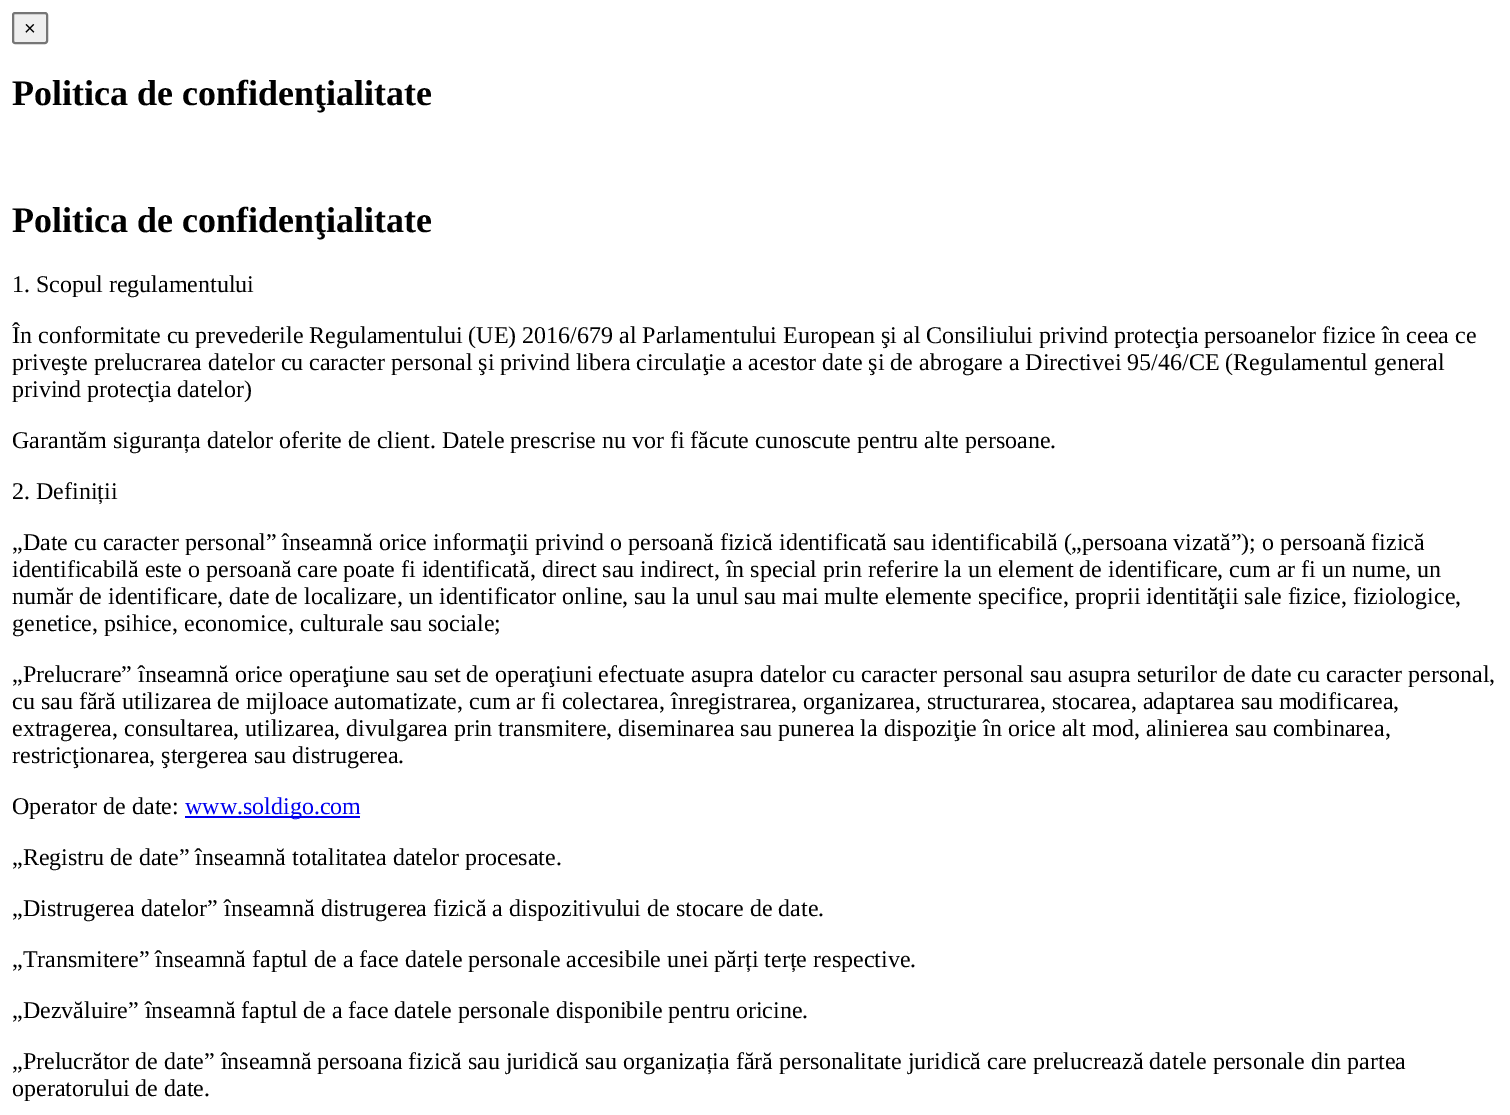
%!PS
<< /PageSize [1510 1115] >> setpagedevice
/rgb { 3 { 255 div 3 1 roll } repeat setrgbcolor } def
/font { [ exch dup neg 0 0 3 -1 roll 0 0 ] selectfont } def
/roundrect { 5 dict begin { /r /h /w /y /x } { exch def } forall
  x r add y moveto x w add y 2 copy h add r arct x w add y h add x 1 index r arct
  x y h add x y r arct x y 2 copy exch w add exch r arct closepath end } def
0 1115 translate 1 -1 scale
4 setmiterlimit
255 255 255 rgb
0 0 1510 1115 rectfill
239 239 239 rgb
13 13 34 30 2 roundrect gsave fill grestore
118 118 118 rgb
2 setlinewidth
stroke
0 0 238 rgb
185 816 175 2 rectfill
/LiberationSans-Regular 20 font
0 0 0 rgb
24 35 moveto (×) show
/LiberationSerif-Bold 36 font
12 105 moveto (Politica de confidenţialitate) show
12 232 moveto (Politica de confidenţialitate) show
/LiberationSerif-Regular 24 font
[
  [(1. Scopul regulamentului) 12 292]
  [(În conformitate cu prevederile Regulamentului \(UE\) 2016/679 al Parlamentului European şi al Consiliului privind protecţia persoanelor fizice în ceea ce) 12 343]
  [(priveşte prelucrarea datelor cu caracter personal şi privind libera circulaţie a acestor date şi de abrogare a Directivei 95/46/CE \(Regulamentul general) 12 370]
  [(privind protecţia datelor\)) 12 397]
  [(Garantăm siguranța datelor oferite de client. Datele prescrise nu vor fi făcute cunoscute pentru alte persoane.) 12 448]
  [(2. Definiții) 12 499]
  [(„Date cu caracter personal” înseamnă orice informaţii privind o persoană fizică identificată sau identificabilă \(„persoana vizată”\); o persoană fizică) 12 550]
  [(identificabilă este o persoană care poate fi identificată, direct sau indirect, în special prin referire la un element de identificare, cum ar fi un nume, un) 12 577]
  [(număr de identificare, date de localizare, un identificator online, sau la unul sau mai multe elemente specifice, proprii identităţii sale fizice, fiziologice,) 12 604]
  [(genetice, psihice, economice, culturale sau sociale;) 12 631]
  [(„Prelucrare” înseamnă orice operaţiune sau set de operaţiuni efectuate asupra datelor cu caracter personal sau asupra seturilor de date cu caracter personal,) 12 682]
  [(cu sau fără utilizarea de mijloace automatizate, cum ar fi colectarea, înregistrarea, organizarea, structurarea, stocarea, adaptarea sau modificarea,) 12 709]
  [(extragerea, consultarea, utilizarea, divulgarea prin transmitere, diseminarea sau punerea la dispoziţie în orice alt mod, alinierea sau combinarea,) 12 736]
  [(restricţionarea, ştergerea sau distrugerea.) 12 763]
  [(Operator de date:) 12 814]
] { aload pop moveto show } forall
0 0 238 rgb
185 814 moveto (www.soldigo.com) show
0 0 0 rgb
[
  [(„Registru de date” înseamnă totalitatea datelor procesate.) 12 865]
  [(„Distrugerea datelor” înseamnă distrugerea fizică a dispozitivului de stocare de date.) 12 916]
  [(„Transmitere” înseamnă faptul de a face datele personale accesibile unei părți terțe respective.) 12 967]
  [(„Dezvăluire” înseamnă faptul de a face datele personale disponibile pentru oricine.) 12 1018]
  [(„Prelucrător de date” înseamnă persoana fizică sau juridică sau organizația fără personalitate juridică care prelucrează datele personale din partea) 12 1069]
  [(operatorului de date.) 12 1096]
] { aload pop moveto show } forall
showpage
